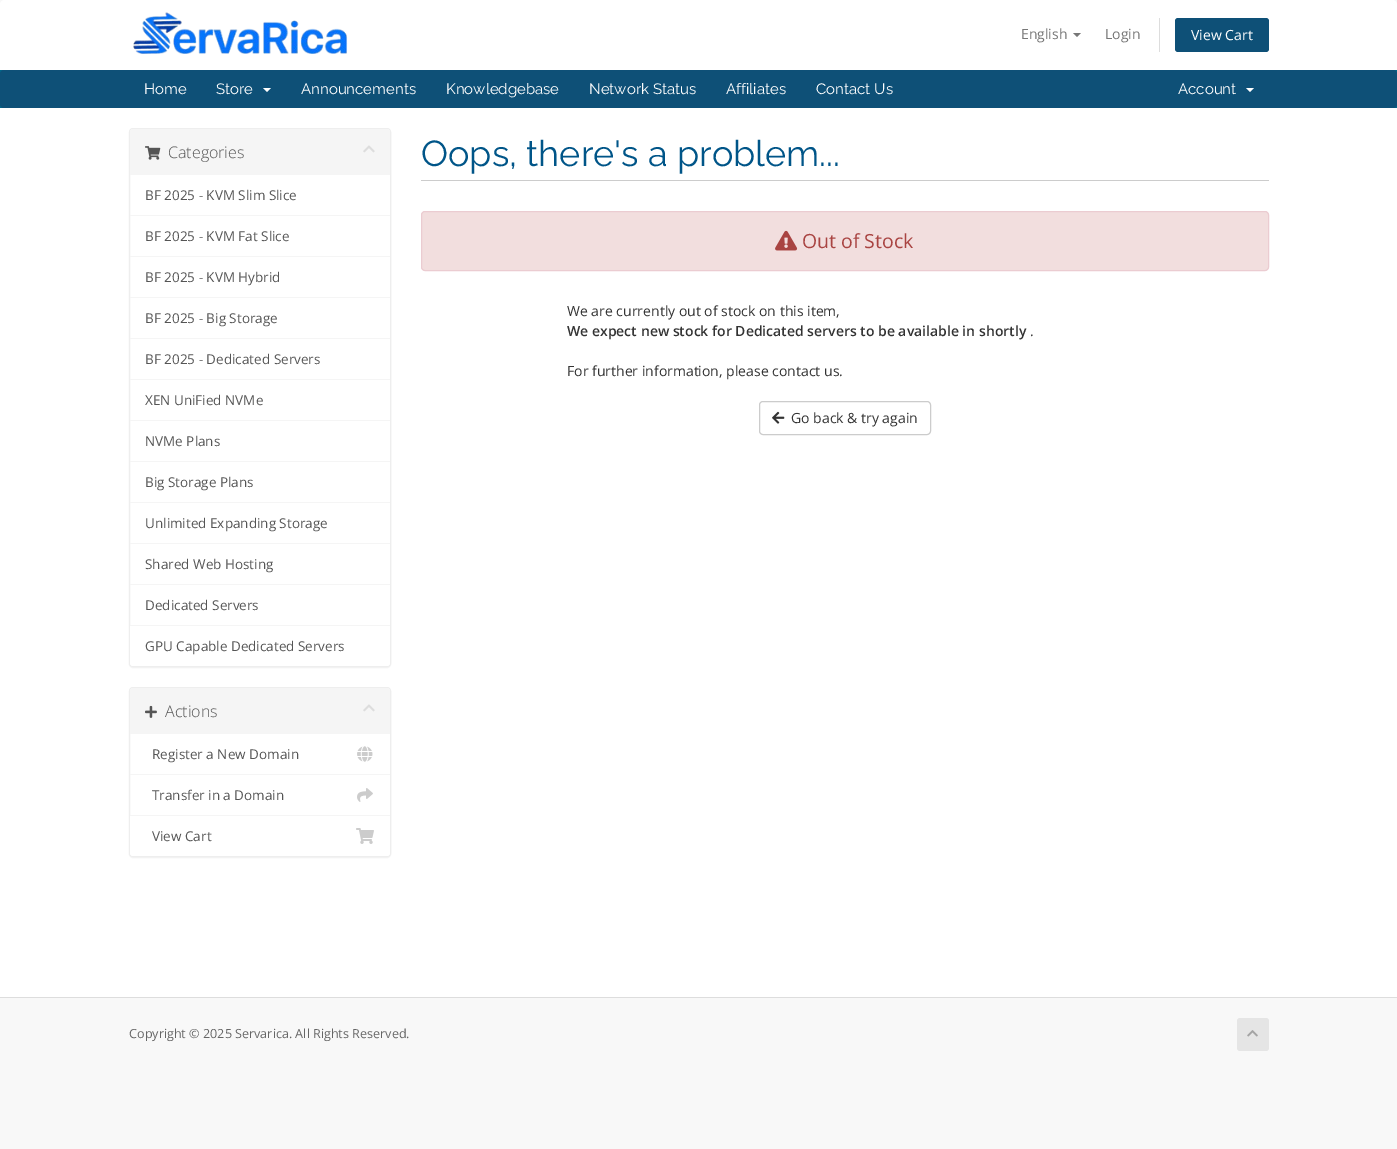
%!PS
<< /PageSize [1397 1149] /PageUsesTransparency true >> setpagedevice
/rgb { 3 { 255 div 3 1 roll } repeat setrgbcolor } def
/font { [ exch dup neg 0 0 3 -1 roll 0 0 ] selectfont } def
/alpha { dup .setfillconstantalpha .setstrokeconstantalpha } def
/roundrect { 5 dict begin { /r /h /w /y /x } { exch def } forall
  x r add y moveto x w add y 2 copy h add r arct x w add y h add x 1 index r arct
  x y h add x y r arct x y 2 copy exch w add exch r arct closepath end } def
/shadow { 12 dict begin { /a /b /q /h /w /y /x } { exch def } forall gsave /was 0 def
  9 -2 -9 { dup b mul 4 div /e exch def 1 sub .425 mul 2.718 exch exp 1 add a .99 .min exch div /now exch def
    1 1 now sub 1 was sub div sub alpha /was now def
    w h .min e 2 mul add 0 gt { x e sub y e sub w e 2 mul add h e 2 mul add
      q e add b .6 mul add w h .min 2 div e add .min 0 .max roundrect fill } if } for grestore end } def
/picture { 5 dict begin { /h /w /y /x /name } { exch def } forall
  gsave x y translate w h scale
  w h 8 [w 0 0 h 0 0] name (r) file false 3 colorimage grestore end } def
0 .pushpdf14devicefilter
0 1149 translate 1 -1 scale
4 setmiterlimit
248 248 248 rgb
0 0 1397 1149 rectfill
255 255 255 rgb
5 0 moveto 1392 0 lineto 1395 0 1397 2 1397 5 curveto 1397 70 lineto 0 70 lineto 0 5 lineto 0 2 2 0 5 0 curveto closepath fill
(img/1.rgb) 133 12 215 42 picture
119 119 119 rgb
1073 33 moveto 1081 33 lineto 1077 37 lineto closepath fill
221 221 221 rgb
1159 18 1 34 rectfill
14 80 119 rgb
1175 18 94 34 3 roundrect fill
0 102 135 rgb
0 70 1397 38 rectfill
14 80 119 rgb
0 70 1397 38 4 roundrect fill
255 255 255 rgb
263 88 moveto 271 88 lineto 267 92 lineto closepath fill
1246 88 moveto 1254 88 lineto 1250 92 lineto closepath fill
0 108 1397 889 rectfill
0 0 0 rgb
129 129 262 539 4 0.5 0.05 shadow
255 255 255 rgb
129.5 128.5 261 538 3.5 roundrect gsave fill grestore
238 238 238 rgb
stroke
245 245 245 rgb
133 129 moveto 387 129 lineto 388.5 129 390 130.5 390 132 curveto 390 175 lineto 130 175 lineto 130 132 lineto 130 130.5 131.5 129 133 129 curveto closepath fill
(img/2.rgb) 145 146 16 14 picture
(img/3.rgb) 363 145 12 8 picture
[
  [130 215 260 1 245 245 245]
  [130 256 260 1 245 245 245]
  [130 297 260 1 245 245 245]
  [130 338 260 1 245 245 245]
  [130 379 260 1 245 245 245]
  [130 420 260 1 245 245 245]
  [130 461 260 1 245 245 245]
  [130 502 260 1 245 245 245]
  [130 543 260 1 245 245 245]
  [130 584 260 1 245 245 245]
  [130 625 260 1 245 245 245]
] { aload pop rgb rectfill } forall
255 255 255 rgb
130 626 moveto 390 626 lineto 390 663 lineto 390 664.5 388.5 666 387 666 curveto 133 666 lineto 131.5 666 130 664.5 130 663 curveto closepath fill
0 0 0 rgb
129 688 262 170 4 0.5 0.05 shadow
255 255 255 rgb
129.5 687.5 261 169 3.5 roundrect gsave fill grestore
238 238 238 rgb
stroke
245 245 245 rgb
133 688 moveto 387 688 lineto 388.5 688 390 689.5 390 691 curveto 390 734 lineto 130 734 lineto 130 691 lineto 130 689.5 131.5 688 133 688 curveto closepath fill
(img/4.rgb) 145 705 12 13 picture
(img/3.rgb) 363 704 12 8 picture
130 774 260 1 rectfill
(img/5.rgb) 357 746 16 16 picture
130 815 260 1 rectfill
(img/6.rgb) 357 788 16 14 picture
255 255 255 rgb
130 816 moveto 390 816 lineto 390 853 lineto 390 854.5 388.5 856 387 856 curveto 133 856 lineto 131.5 856 130 854.5 130 853 curveto closepath fill
(img/7.rgb) 356 828 18 16 picture
204 204 204 rgb
421 180 848 1 rectfill
242 222 222 rgb
421.5 211.5 847 59 3.5 roundrect gsave fill grestore
235 204 209 rgb
stroke
(img/8.rgb) 775 230 23 21 picture
204 204 204 rgb
759.5 401.5 171 33 3.5 roundrect stroke
(img/9.rgb) 772 411 13 13 picture
221 221 221 rgb
0 997 1397 1 rectfill
229 229 229 rgb
1237 1018 32 33 3 roundrect fill
(img/10.rgb) 1247 1030 11 7 picture
/OpenSans-Regular 14 font
119 119 119 rgb
1021 39 moveto (English) show
1105 39 moveto (Login) show
255 255 255 rgb
1191 40 moveto (View Cart) show
/Raleway-Regular 15 font
[
  [(Home) 144 94]
  [(Store) 216 94]
  [(Announcements) 301 94]
  [(Knowledgebase) 446 94]
  [(Network Status) 589 94]
  [(Affiliates) 726 94]
  [(Contact Us) 816 94]
  [(Account) 1178 94]
] { aload pop moveto show } forall
/OpenSans-Light 16 font
85 85 85 rgb
168 158 moveto (Categories) show
/OpenSans-Regular 13.5 font
[
  [(BF 2025 - KVM Slim Slice) 145 200]
  [(BF 2025 - KVM Fat Slice) 145 241]
  [(BF 2025 - KVM Hybrid) 145 282]
  [(BF 2025 - Big Storage) 145 323]
  [(BF 2025 - Dedicated Servers) 145 364]
  [(XEN UniFied NVMe) 145 405]
  [(NVMe Plans) 145 446]
  [(Big Storage Plans) 145 487]
  [(Unlimited Expanding Storage) 145 528]
  [(Shared Web Hosting) 145 569]
  [(Dedicated Servers) 145 610]
  [(GPU Capable Dedicated Servers) 145 651]
] { aload pop moveto show } forall
/OpenSans-Light 16 font
165 717 moveto (Actions) show
/OpenSans-Regular 13.5 font
[
  [(Register a New Domain) 152 759]
  [(Transfer in a Domain) 152 800]
  [(View Cart) 152 841]
] { aload pop moveto show } forall
/Raleway-Regular 36 font
0 85 136 rgb
421 166 moveto (Oops, there's a problem...) show
/OpenSans-Regular 19.5 font
169 68 66 rgb
802 248 moveto (Out of Stock) show
/OpenSans-Regular 14 font
51 51 51 rgb
567 316 moveto (We are currently out of stock on this item,) show
/OpenSans-SemiBold 14 font
567 336 moveto (We expect new stock for Dedicated servers to be available in shortly) show
/OpenSans-Regular 14 font
[
  [(.) 1030 336]
  [(For further information, please contact us.) 567 376]
  [(Go back & try again) 791 423]
] { aload pop moveto show } forall
/OpenSans-Regular 12.6 font
102 102 102 rgb
129 1038 moveto (Copyright © 2025 Servarica. All Rights Reserved.) show
.poppdf14devicefilter showpage
